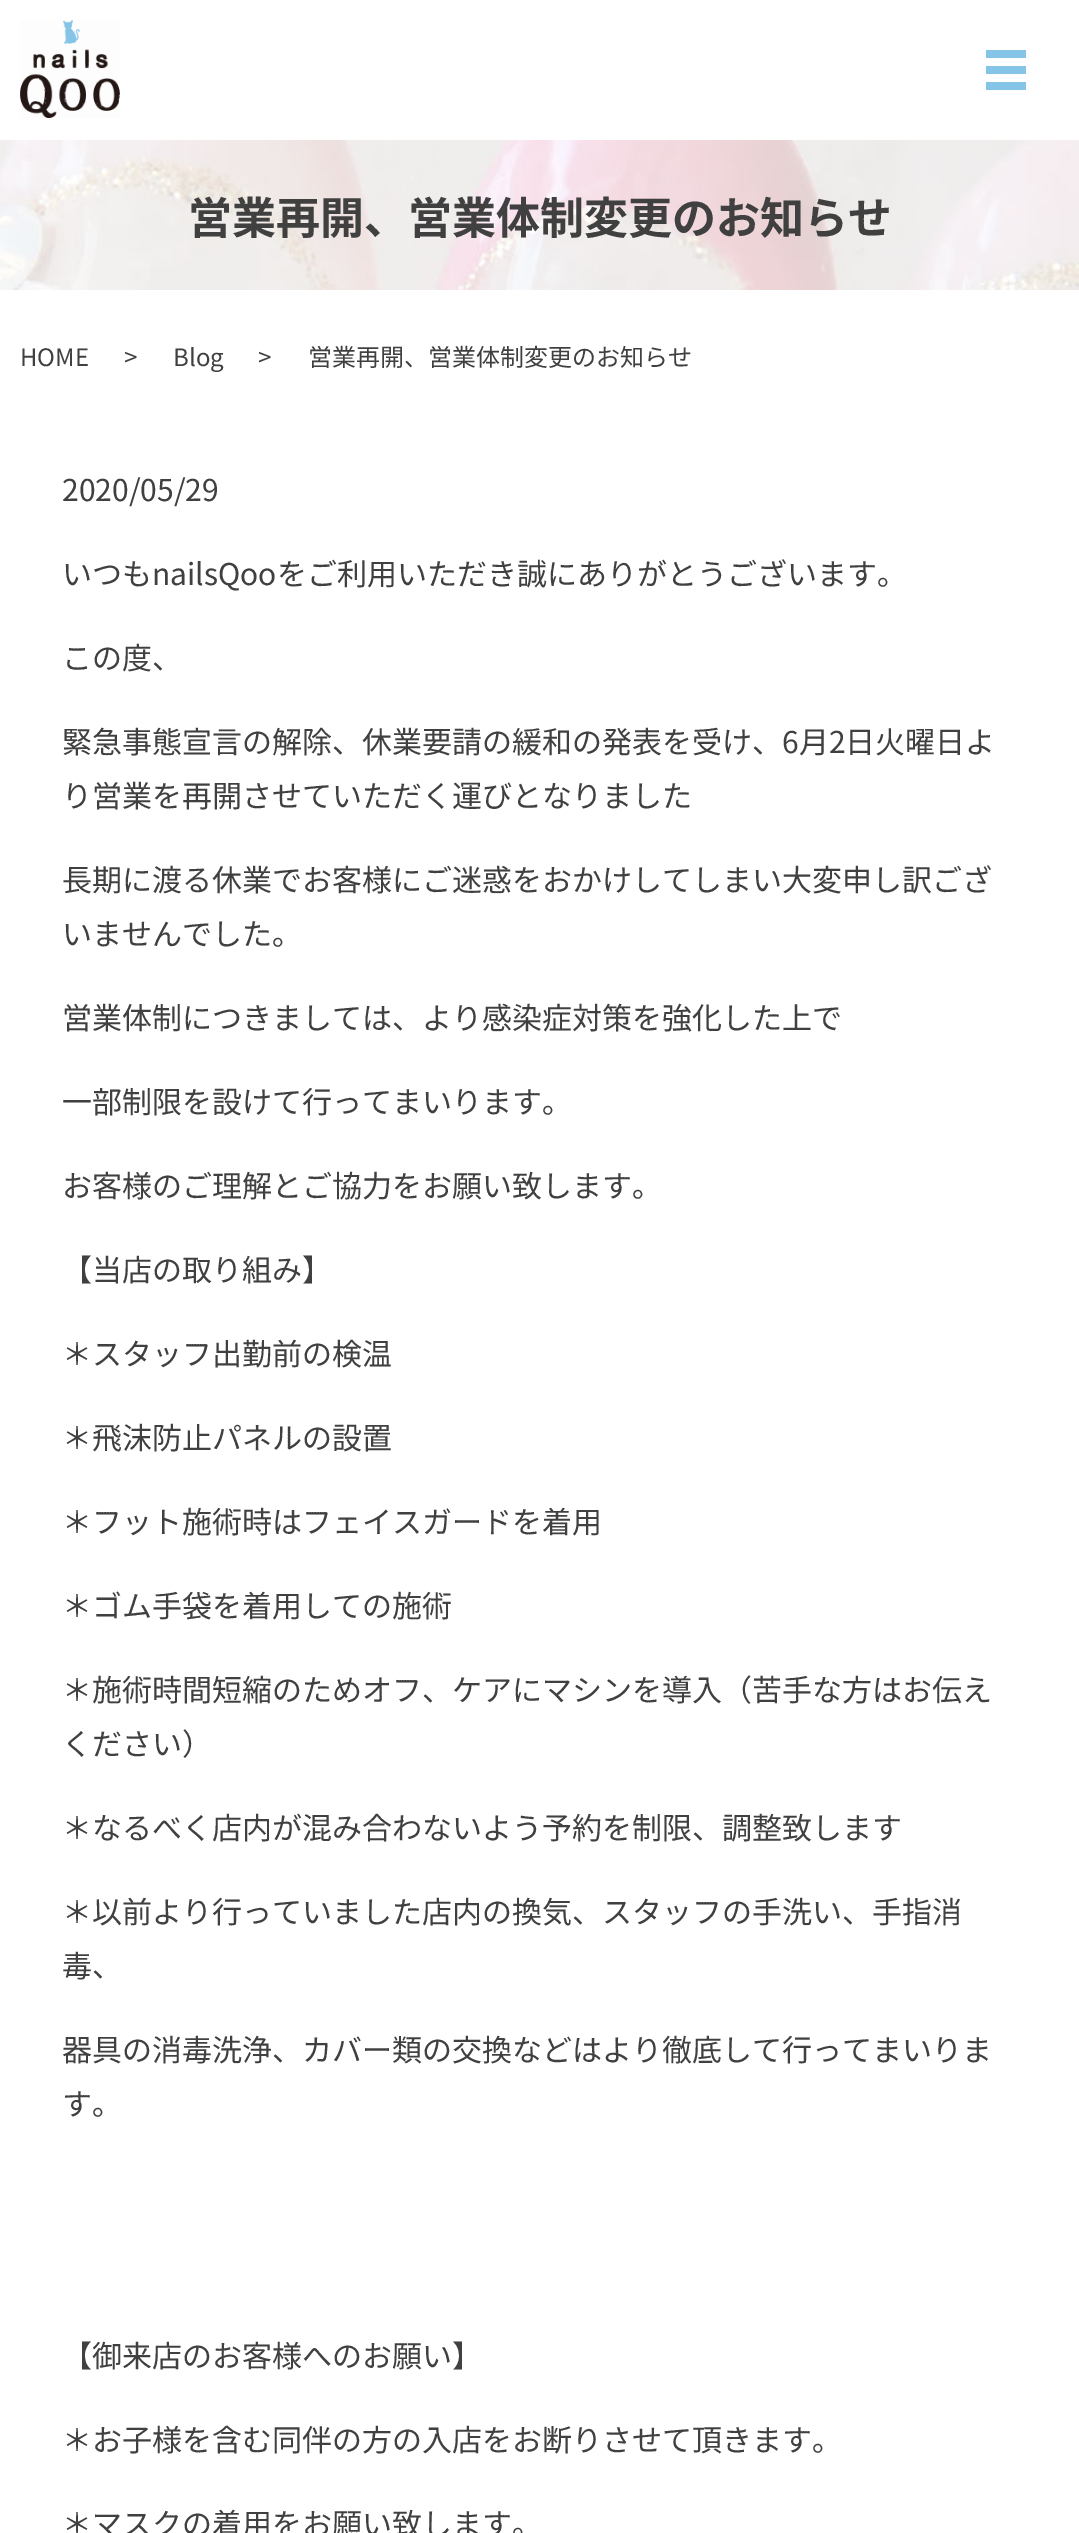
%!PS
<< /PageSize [1079 2533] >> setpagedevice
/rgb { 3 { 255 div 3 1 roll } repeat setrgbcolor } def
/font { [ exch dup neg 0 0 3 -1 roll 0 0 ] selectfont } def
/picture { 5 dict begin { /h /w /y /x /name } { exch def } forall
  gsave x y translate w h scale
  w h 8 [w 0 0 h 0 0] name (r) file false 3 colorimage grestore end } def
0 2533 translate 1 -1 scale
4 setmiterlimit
255 255 255 rgb
0 0 1079 2533 rectfill
(img/1.rgb) 20 20 100 98 picture
[
  [986 50 40 8 133 195 231]
  [986 66 40 8 133 195 231]
  [986 82 40 8 133 195 231]
] { aload pop rgb rectfill } forall
(img/2.rgb) 0 140 1079 150 picture
/NotoSansJP-Bold 44 font
64 64 64 rgb
188 234 moveto (営業再開、営業体制変更のお知らせ) show
/NotoSansJP-Regular 24 font
[
  [(HOME) 20 366]
  [(>) 124 366]
  [(Blog) 173 366]
  [(>) 258 366]
  [(営業再開、営業体制変更のお知らせ) 308 366]
] { aload pop moveto show } forall
/NotoSansJP-Regular 30 font
[
  [(2020/05/29) 62 501]
  [(いつもnailsQooをご利用いただき誠にありがとうございます。) 62 585]
  [(この度、) 62 669]
  [(緊急事態宣言の解除、休業要請の緩和の発表を受け、6月2日火曜日よ) 62 753]
  [(り営業を再開させていただく運びとなりました) 62 807]
  [(長期に渡る休業でお客様にご迷惑をおかけしてしまい大変申し訳ござ) 62 891]
  [(いませんでした。) 62 945]
  [(営業体制につきましては、より感染症対策を強化した上で) 62 1029]
  [(一部制限を設けて行ってまいります。) 62 1113]
  [(お客様のご理解とご協力をお願い致します。) 62 1197]
  [(【当店の取り組み】) 62 1281]
  [(＊スタッフ出勤前の検温) 62 1365]
  [(＊飛沫防止パネルの設置) 62 1449]
  [(＊フット施術時はフェイスガードを着用) 62 1533]
  [(＊ゴム手袋を着用しての施術) 62 1617]
  [(＊施術時間短縮のためオフ、ケアにマシンを導入（苦手な方はお伝え) 62 1701]
  [(ください）) 62 1755]
  [(＊なるべく店内が混み合わないよう予約を制限、調整致します) 62 1839]
  [(＊以前より行っていました店内の換気、スタッフの手洗い、手指消) 62 1923]
  [(毒、) 62 1977]
  [(器具の消毒洗浄、カバー類の交換などはより徹底して行ってまいりま) 62 2061]
  [(す。) 62 2115]
  [(【御来店のお客様へのお願い】) 62 2367]
  [(＊お子様を含む同伴の方の入店をお断りさせて頂きます。) 62 2451]
  [(＊マスクの着用をお願い致します。) 62 2535]
] { aload pop moveto show } forall
showpage
